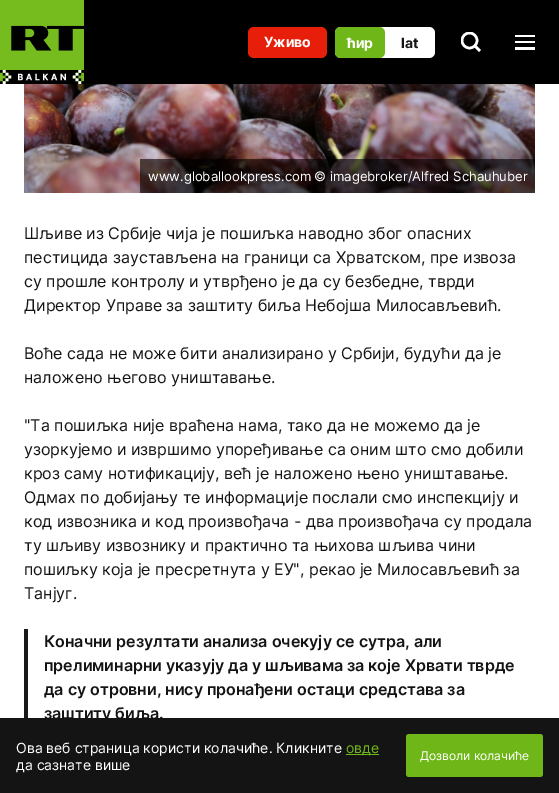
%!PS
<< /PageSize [559 793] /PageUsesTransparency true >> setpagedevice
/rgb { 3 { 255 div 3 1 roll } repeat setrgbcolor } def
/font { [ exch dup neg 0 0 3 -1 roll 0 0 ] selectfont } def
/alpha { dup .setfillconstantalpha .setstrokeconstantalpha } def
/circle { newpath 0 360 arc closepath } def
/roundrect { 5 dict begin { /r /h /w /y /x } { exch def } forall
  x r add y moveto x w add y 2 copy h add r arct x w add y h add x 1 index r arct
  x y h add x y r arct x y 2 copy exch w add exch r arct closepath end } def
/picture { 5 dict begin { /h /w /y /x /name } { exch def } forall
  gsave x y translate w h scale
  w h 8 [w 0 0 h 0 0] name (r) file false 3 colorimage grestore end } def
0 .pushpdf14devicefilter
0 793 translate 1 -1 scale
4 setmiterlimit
255 255 255 rgb
0 0 559 793 rectfill
0 0 0 rgb
84 0 475 84 rectfill
(img/1.rgb) 0 0 84 84 picture
230 30 10 rgb
248 27 79 31 6 roundrect fill
255 255 255 rgb
335 27 100 31 6 roundrect fill
111 183 25 rgb
335 27 50 31 6 roundrect fill
gsave
461 32 20 20 rectclip
255 255 255 rgb
2.5 setlinewidth
469.5 40.5 7.5 circle stroke
grestore
255 255 255 rgb
2.5 setlinewidth
475 46 moveto 480 51 lineto stroke
[
  [515 35 20 2 255 255 255]
  [515 41 20 2 255 255 255]
  [515 47 20 3 255 255 255]
] { aload pop rgb rectfill } forall
(img/2.rgb) 24 84 511 109 picture
0.6 alpha
[
  [140 159 395 34 0 0 0]
] { aload pop rgb rectfill } forall
1 alpha
[
  [24 629 4 96 24 25 26]
  [0 718 559 75 20 20 20]
  [346 754 33 1 111 183 25]
] { aload pop rgb rectfill } forall
406 734 137 43 3 roundrect fill
/Inter-Bold 14 font
255 255 255 rgb
264 47 moveto (Уживо) show
347 48 moveto (ћир) show
20 20 20 rgb
401 48 moveto (lat) show
/Inter-Regular 13.1 font
255 255 255 rgb
148 181 moveto (www.globallookpress.com) show
314 181 moveto (© imagebroker/Alfred Schauhuber) show
/Inter-Regular 16 font
20 20 20 rgb
[
  [(Шљиве из Србије чија је пошиљка наводно због опасних) 24 239]
  [(пестицида заустављена на граници са Хрватском, пре извоза) 24 263]
  [(су прошле контролу и утврђено је да су безбедне, тврди) 24 287]
  [(Директор Управе за заштиту биља Небојша Милосављевић.) 24 311]
  [(Воће сада не може бити анализирано у Србији, будући да је) 24 359]
  [(наложено његово уништавање.) 24 383]
  [("Та пошиљка није враћена нама, тако да не можемо да је) 24 431]
  [(узоркујемо и извршимо упоређивање са оним што смо добили) 24 455]
  [(кроз саму нотификацију, већ је наложено њено уништавање.) 24 479]
  [(Одмах по добијању те информације послали смо инспекцију и) 24 503]
  [(код извозника и код произвођача - два произвођача су продала) 24 527]
  [(ту шљиву извознику и практично та њихова шљива чини) 24 551]
  [(пошиљку која је пресретнута у ЕУ", рекао је Милосављевић за) 24 575]
  [(Танјуг.) 24 599]
] { aload pop moveto show } forall
/Inter-SemiBold 16 font
[
  [(Коначни резултати анализа очекују се сутра, али) 44 647]
  [(прелиминарни указују да у шљивама за које Хрвати тврде) 44 671]
  [(да су отровни, нису пронађени остаци средстава за) 44 695]
  [(заштиту биља.) 44 719]
] { aload pop moveto show } forall
/Inter-Regular 14 font
255 255 255 rgb
16 753 moveto (Ова веб страница користи колачиће. Кликните) show
111 183 25 rgb
346 753 moveto (овде) show
255 255 255 rgb
16 770 moveto (да сазнате више) show
/Inter-Regular 12 font
420 760 moveto (Дозволи колачиће) show
.poppdf14devicefilter showpage
